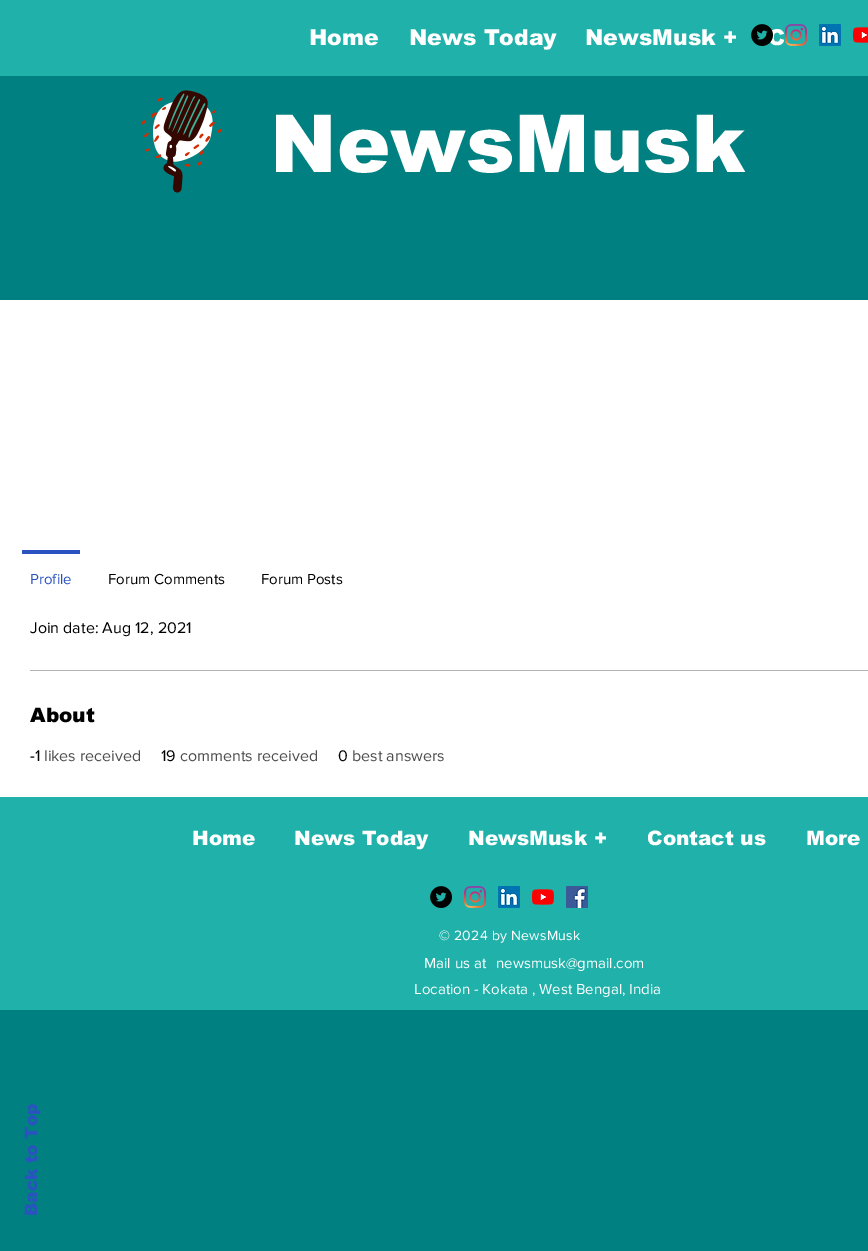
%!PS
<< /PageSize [868 1251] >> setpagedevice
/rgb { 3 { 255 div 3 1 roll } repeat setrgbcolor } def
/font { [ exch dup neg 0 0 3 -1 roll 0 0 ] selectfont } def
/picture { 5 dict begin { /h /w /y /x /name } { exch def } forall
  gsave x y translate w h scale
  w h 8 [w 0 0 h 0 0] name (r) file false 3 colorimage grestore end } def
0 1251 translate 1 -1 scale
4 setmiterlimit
0 128 128 rgb
0 0 868 1251 rectfill
32 178 170 rgb
0 0 784 76 rectfill
(img/5.rgb) 142 90 80 103 picture
[
  [0 300 868 497 255 255 255]
  [22 550 58 4 42 83 193]
  [30 670 838 1 179 179 179]
  [0 797 868 213 32 178 170]
] { aload pop rgb rectfill } forall
(img/6.rgb) 430 886 22 22 picture
(img/2.rgb) 464 886 22 22 picture
(img/3.rgb) 498 886 22 22 picture
(img/7.rgb) 532 889 22 16 picture
(img/8.rgb) 566 886 22 22 picture
/arial-Black 22 font
255 255 255 rgb
[
  [(Home) 309 45]
  [(News Today) 409 45]
  [(NewsMusk +) 585 45]
  [(C) 768 45]
] { aload pop moveto show } forall
32 178 170 rgb
784 0 84 76 rectfill
(img/1.rgb) 751 24 22 22 picture
(img/2.rgb) 785 24 22 22 picture
(img/3.rgb) 819 24 22 22 picture
(img/4.rgb) 853 27 15 16 picture
/arial-Black 80 font
255 255 255 rgb
270 172 moveto (NewsMusk) show
/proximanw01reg-Regular 15 font
42 83 193 rgb
30 584 moveto (Profile) show
0 0 0 rgb
108 584 moveto (Forum Comments) show
261 584 moveto (Forum Posts) show
/proximanw01reg-Regular 16 font
30 633 moveto (Join date: Aug 12, 2021) show
/arial-Black 20 font
30 722 moveto (About) show
/proximanw01reg-Regular 16 font
30 761 moveto (-1) show
77 77 77 rgb
44 761 moveto (likes received) show
0 0 0 rgb
161 761 moveto (19) show
77 77 77 rgb
180 761 moveto (comments received) show
0 0 0 rgb
338 761 moveto (0) show
77 77 77 rgb
352 761 moveto (best answers) show
/arial-Black 20 font
255 255 255 rgb
[
  [(Home) 192 845]
  [(News Today) 294 845]
  [(NewsMusk +) 468 845]
  [(Contact us) 647 845]
  [(More) 806 845]
] { aload pop moveto show } forall
/proximanw01reg-Regular 14 font
439 940 moveto 0.25 0 (© 2024 by NewsMusk) ashow
/proximanw01reg-Regular 15 font
[
  [(Mail us at) 424 968]
  [(newsmusk@gmail.com) 496 968]
  [(Location - Kokata , West Bengal, India) 414 994]
] { aload pop moveto show } forall
/arial-Black 17 font
42 83 193 rgb
gsave 37 1216 translate -90 rotate 0 0 moveto (Back to Top) show grestore
showpage
